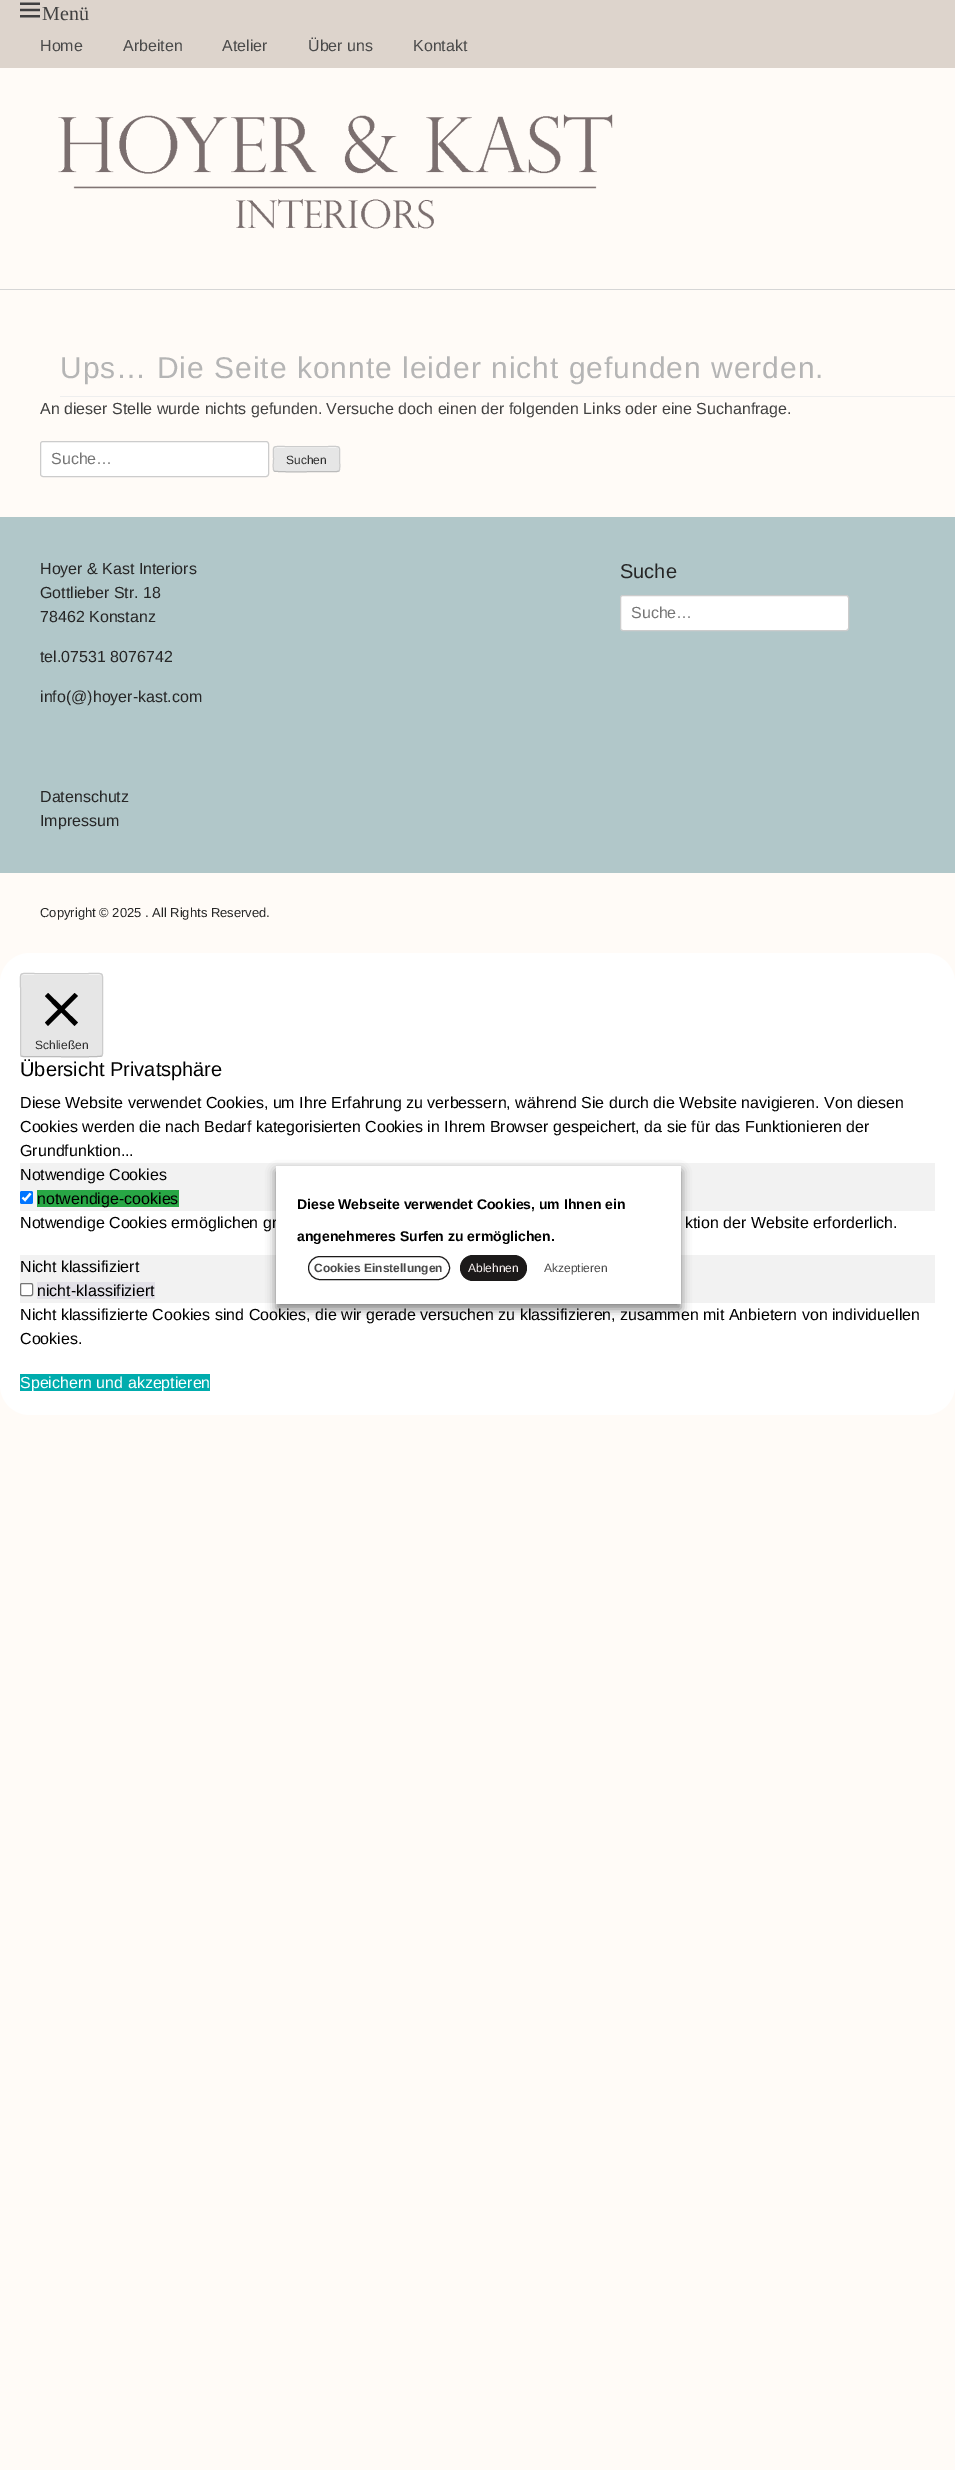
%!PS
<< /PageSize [955 2470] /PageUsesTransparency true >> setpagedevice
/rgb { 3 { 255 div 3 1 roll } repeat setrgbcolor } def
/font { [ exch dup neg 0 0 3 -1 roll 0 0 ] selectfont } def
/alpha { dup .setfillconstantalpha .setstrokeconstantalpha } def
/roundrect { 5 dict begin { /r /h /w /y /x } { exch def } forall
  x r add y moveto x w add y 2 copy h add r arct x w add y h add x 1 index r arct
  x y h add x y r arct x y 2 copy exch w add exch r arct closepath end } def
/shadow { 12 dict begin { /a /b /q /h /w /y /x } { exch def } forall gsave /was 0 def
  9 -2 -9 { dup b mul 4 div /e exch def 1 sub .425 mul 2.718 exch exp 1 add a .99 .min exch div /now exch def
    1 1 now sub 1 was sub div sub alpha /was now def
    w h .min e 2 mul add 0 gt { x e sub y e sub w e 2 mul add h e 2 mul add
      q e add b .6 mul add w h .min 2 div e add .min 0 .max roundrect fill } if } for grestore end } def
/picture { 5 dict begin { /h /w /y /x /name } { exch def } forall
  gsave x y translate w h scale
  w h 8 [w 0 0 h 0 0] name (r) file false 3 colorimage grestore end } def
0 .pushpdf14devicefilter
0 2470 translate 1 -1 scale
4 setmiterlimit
255 251 247 rgb
0 0 955 2470 rectfill
221 212 204 rgb
0 0 955 68 rectfill
(img/1.rgb) 20 2 20 16 picture
214 214 214 rgb
0 289 955 1 rectfill
(img/2.rgb) 58 114 555 115 picture
238 238 238 rgb
60 396 895 1 rectfill
255 255 255 rgb
40.5 441.5 228 35 2.5 roundrect gsave fill grestore
204 204 204 rgb
stroke
230 230 230 rgb
273 446 67 26 3 roundrect fill
243 243 243 rgb
276 448 moveto 338 448 lineto 339 450 lineto 339 444 331 447 327 447 curveto 286 447 lineto 282 447 274 444 274 450 curveto 274 449 275 448 276 448 curveto closepath fill
187 187 187 rgb
339 471 moveto 337 471.5 lineto 327 471.5 lineto 321 471.5 276.5 472.5 274.5 471 curveto 274 471 lineto stroke
204 204 204 rgb
274 471 moveto 272.5 469 273.5 461.5 273.5 459 curveto 273.5 444.5 271 446.5 286 446.5 curveto 327 446.5 lineto 342 446.5 339.5 444.5 339.5 459 curveto 339.5 461.5 340.5 469 339 471 curveto stroke
177 199 201 rgb
0 517 955 356 rectfill
255 255 255 rgb
620.5 595.5 228 35 2.5 roundrect gsave fill grestore
204 204 204 rgb
stroke
255 255 255 rgb
0 953 955 462 30 roundrect fill
230 230 230 rgb
20 973 83 84 3 roundrect fill
243 243 243 rgb
23 975 moveto 100 975 lineto 102 976 lineto 102 975 101 974 100 974 curveto 23 974 lineto 22 974 21 975 21 976 curveto 21 977 lineto 21 976 22 975 23 975 curveto closepath fill
187 187 187 rgb
102 1056 moveto 101.5 1056 lineto 99.5 1057.5 43 1056.5 36 1056.5 curveto 23 1056.5 lineto 21 1056 lineto stroke
204 204 204 rgb
21 1056 moveto 20.5 1054 lineto 20.5 989 lineto 20.5 970.5 17.5 973.5 36 973.5 curveto 87 973.5 lineto 105.5 973.5 102.5 970.5 102.5 989 curveto 102.5 1054 lineto 102 1056 lineto stroke
0 0 0 rgb
78 996 moveto 74.5 993 lineto 61.5 1006 lineto 48 993 lineto 45 996 lineto 58 1009.5 lineto 45 1022.5 lineto 48 1026 lineto 61.5 1012.5 lineto 74.5 1026 lineto 78 1022.5 lineto 64.5 1009.5 lineto closepath fill
242 242 242 rgb
20 1163 915 48 rectfill
0 117 255 rgb
20 1191 13 13 2 roundrect fill
255 255 255 rgb
2.1 setlinewidth
22.5 1197.5 moveto 25 1200 lineto 30.5 1193.5 lineto stroke
40 167 69 rgb
37 1190 142 17 rectfill
242 242 242 rgb
20 1255 915 48 rectfill
255 255 255 rgb
20.5 1283.5 12 12 1.5 roundrect gsave fill grestore
118 118 118 rgb
1 setlinewidth
stroke
227 225 232 rgb
37 1282 118 17 rectfill
0 172 173 rgb
20 1374 190 17 rectfill
0 0 0 rgb
276 1171 405 138 0 5 0.5 shadow
/LiberationSerif-Regular 20 font
64 64 64 rgb
42 20 moveto (Menü) show
/LiberationSans-Regular 16 font
73 73 73 rgb
[
  [(Home) 40 51]
  [(Arbeiten) 123 51]
  [(Atelier) 222 51]
  [(Über uns) 308 51]
  [(Kontakt) 413 51]
] { aload pop moveto show } forall
/LiberationSans-Regular 30 font
181 181 181 rgb
60 378 moveto 1 0 (Ups… Die Seite konnte leider nicht gefunden werden.) ashow
/LiberationSans-Regular 16 font
64 64 64 rgb
40 414 moveto (An dieser Stelle wurde nichts gefunden. Versuche doch einen der folgenden Links oder eine Suchanfrage.) show
117 117 117 rgb
51 464 moveto (Suche…) show
/LiberationSans-Regular 12 font
46 46 46 rgb
286 464 moveto (Suchen) show
/LiberationSans-Regular 16 font
38 38 38 rgb
[
  [(Hoyer & Kast Interiors) 40 574]
  [(Gottlieber Str. 18) 40 598]
  [(78462 Konstanz) 40 622]
  [(tel.07531 8076742) 40 662]
  [(info\(@\)hoyer-kast.com) 40 702]
  [(Datenschutz) 40 802]
  [(Impressum) 40 826]
] { aload pop moveto show } forall
/LiberationSans-Regular 20 font
620 578 moveto (Suche) show
/LiberationSans-Regular 16 font
117 117 117 rgb
631 618 moveto (Suche…) show
/LiberationSans-Regular 13 font
38 38 38 rgb
40 917 moveto (Copyright © 2025 . All Rights Reserved.) show
/LiberationSans-Regular 12 font
46 46 46 rgb
35 1049 moveto (Schließen) show
/LiberationSans-Regular 20 font
0 0 0 rgb
20 1076 moveto (Übersicht Privatsphäre) show
/LiberationSans-Regular 16 font
[
  [(Diese Website verwendet Cookies, um Ihre Erfahrung zu verbessern, während Sie durch die Website navigieren. Von diesen) 20 1108]
  [(Cookies werden die nach Bedarf kategorisierten Cookies in Ihrem Browser gespeichert, da sie für das Funktionieren der) 20 1132]
  [(Grundfunktion...) 20 1156]
  [(Notwendige Cookies) 20 1180]
  [(notwendige-cookies) 37 1204]
  [(Notwendige Cookies ermöglichen gr) 20 1228]
  [(ktion der Website erforderlich.) 685 1228]
  [(Nicht klassifiziert) 20 1272]
  [(nicht-klassifiziert) 37 1296]
  [(Nicht klassifizierte Cookies sind Cookies, die wir gerade versuchen zu klassifizieren, zusammen mit Anbietern von individuellen) 20 1320]
  [(Cookies.) 20 1344]
] { aload pop moveto show } forall
255 255 255 rgb
20 1388 moveto (Speichern und akzeptieren) show
276 1166 405 138 rectfill
/LiberationSans-Bold 14 font
0 0 0 rgb
297 1209 moveto (Diese Webseite verwendet Cookies, um Ihnen ein) show
297 1241 moveto (angenehmeres Surfen zu ermöglichen.) show
28 26 26 rgb
308.5 1256.5 141 23 11.5 roundrect stroke
/LiberationSans-Bold 12 font
73 73 73 rgb
314 1272 moveto (Cookies Einstellungen) show
28 26 26 rgb
460 1255 67 26 13 roundrect fill
/LiberationSans-Regular 12 font
252 245 244 rgb
468 1272 moveto (Ablehnen) show
73 73 73 rgb
544 1272 moveto (Akzeptieren) show
.poppdf14devicefilter showpage
